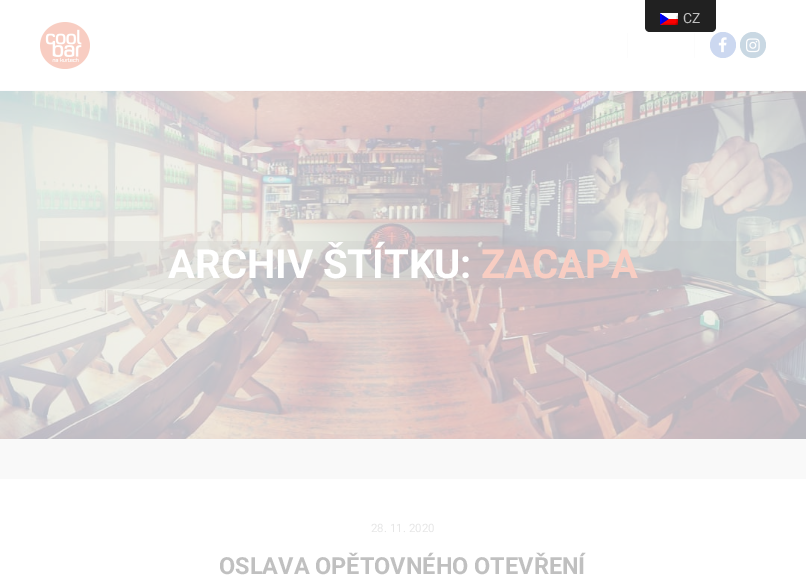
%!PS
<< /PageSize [806 578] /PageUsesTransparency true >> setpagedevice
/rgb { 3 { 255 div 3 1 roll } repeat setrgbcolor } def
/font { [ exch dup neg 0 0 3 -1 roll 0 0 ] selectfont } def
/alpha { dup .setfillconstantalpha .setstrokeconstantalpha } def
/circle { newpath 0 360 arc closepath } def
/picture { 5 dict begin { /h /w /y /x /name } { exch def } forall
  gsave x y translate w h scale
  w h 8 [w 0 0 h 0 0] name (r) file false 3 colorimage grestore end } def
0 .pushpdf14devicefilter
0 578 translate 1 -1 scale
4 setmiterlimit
249 249 249 rgb
0 0 806 578 rectfill
255 255 255 rgb
0 0 806 90 rectfill
33 33 33 rgb
645 0 moveto 716 0 lineto 716 27 lineto 716 30 714 32 711 32 curveto 650 32 lineto 647 32 645 30 645 27 curveto closepath fill
(img/1.rgb) 660 13 18 12 picture
252 252 252 rgb
0 90 806 1 rectfill
(img/2.rgb) 40 22 50 47 picture
627 33 1 25 rectfill
694 33 1 25 rectfill
204 216 240 rgb
723 45 13 circle fill
(img/3.rgb) 718 37 9 16 picture
201 216 227 rgb
753 45 13 circle fill
(img/4.rgb) 746 38 14 15 picture
(img/5.rgb) 0 91 806 348 picture
0.2 alpha
184 184 184 rgb
40 241 726 48 rectfill
1 alpha
255 255 255 rgb
0 479 806 99 rectfill
/Roboto-Regular 14 font
192 192 192 rgb
683 23 moveto (CZ) show
/Roboto-Bold 40 font
255 255 255 rgb
168 278 moveto (ARCHIV ŠTÍTKU:) show
248 205 194 rgb
481 278 moveto (ZACAPA) show
/Roboto-Regular 11.5 font
230 230 230 rgb
371 532 moveto (28. 11. 2020) show
/Roboto-Bold 23.5 font
192 192 192 rgb
219 574 moveto (OSLAVA OPĚTOVNÉHO OTEVŘENÍ) show
.poppdf14devicefilter showpage
